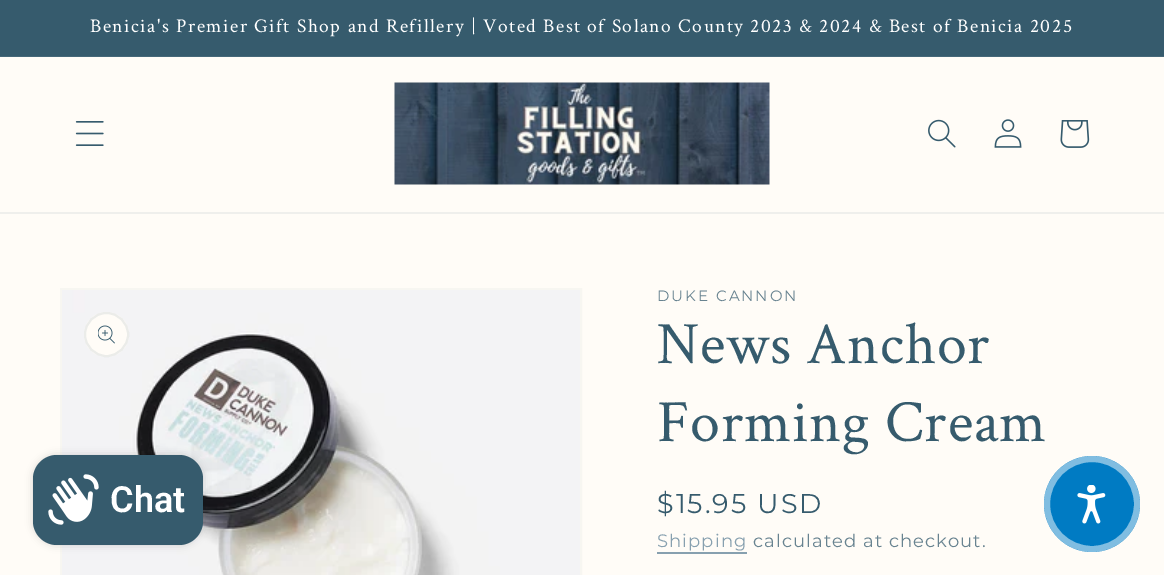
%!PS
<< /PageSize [1164 575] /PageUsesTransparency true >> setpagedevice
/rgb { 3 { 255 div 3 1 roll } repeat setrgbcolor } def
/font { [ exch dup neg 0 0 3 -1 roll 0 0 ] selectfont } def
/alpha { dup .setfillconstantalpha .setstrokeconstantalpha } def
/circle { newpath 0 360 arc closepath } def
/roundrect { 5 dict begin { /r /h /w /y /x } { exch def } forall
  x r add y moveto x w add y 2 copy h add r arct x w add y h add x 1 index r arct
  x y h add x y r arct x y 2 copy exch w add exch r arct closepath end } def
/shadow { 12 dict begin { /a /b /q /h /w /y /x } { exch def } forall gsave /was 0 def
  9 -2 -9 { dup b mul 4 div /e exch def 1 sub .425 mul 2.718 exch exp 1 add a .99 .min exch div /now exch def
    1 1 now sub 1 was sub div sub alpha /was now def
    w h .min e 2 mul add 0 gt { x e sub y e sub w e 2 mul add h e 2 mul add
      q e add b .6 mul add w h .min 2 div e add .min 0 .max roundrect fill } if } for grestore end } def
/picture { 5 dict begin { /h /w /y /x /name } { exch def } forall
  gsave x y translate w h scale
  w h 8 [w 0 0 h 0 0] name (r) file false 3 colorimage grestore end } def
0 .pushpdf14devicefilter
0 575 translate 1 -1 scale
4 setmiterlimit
255 252 247 rgb
0 0 1164 575 rectfill
[
  [0 0 1164 56 54 91 109]
  [0 56 1164 1 70 104 121]
  [0 212 1164 2 239 239 236]
] { aload pop rgb rectfill } forall
(img/1.rgb) 75 121 29 25 picture
(img/2.rgb) 394 82 376 103 picture
(img/3.rgb) 928 119 28 29 picture
(img/4.rgb) 994 119 28 29 picture
(img/5.rgb) 1060 120 30 28 picture
247 246 241 rgb
2 setlinewidth
61 289 520 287 rectstroke
(img/7.rgb) 62 290 518 285 picture
0 0 0 rgb
33 455 170 90 24 4 0.15 shadow
54 91 109 rgb
33 455 170 90 24 roundrect fill
(img/6.rgb) 48 474 51 51 picture
255 252 247 rgb
106.5 334.5 22.5 circle fill
0.1 alpha
54 91 109 rgb
106.5 334.5 21.5 circle stroke
1 alpha
(img/8.rgb) 98 325 17 19 picture
135 160 175 rgb
657 552 90 2 rectfill
0 123 195 rgb
1092 504 48 circle fill
0.5 alpha
255 255 255 rgb
6 setlinewidth
1092 504 45 circle stroke
1 alpha
(img/9.rgb) 1077 485 29 39 picture
/CrimsonText-Regular 19.5 font
90 32 moveto 1.5 0 (Benicia's Premier Gift Shop and Refillery | Voted Best of Solano County 2023 & 2024 & Best of Benicia 2025) ashow
/Roboto-SemiBold 36 font
110 512 moveto (Chat) show
/Montserrat-Thin 15 font
104 131 144 rgb
657 301 moveto 2 0 (DUKE CANNON) ashow
/CrimsonText-Regular 60 font
54 91 109 rgb
657 363 moveto 0.9 0 (News Anchor) ashow
657 441 moveto 0.9 0 (Forming Cream) ashow
/Montserrat-Thin 27 font
657 513 moveto 2 0 ($15.95 USD) ashow
/Montserrat-Thin 18 font
135 160 175 rgb
657 547 moveto 1.05 0 (Shipping) ashow
104 131 144 rgb
753 547 moveto 1.05 0 (calculated at checkout.) ashow
.poppdf14devicefilter showpage
